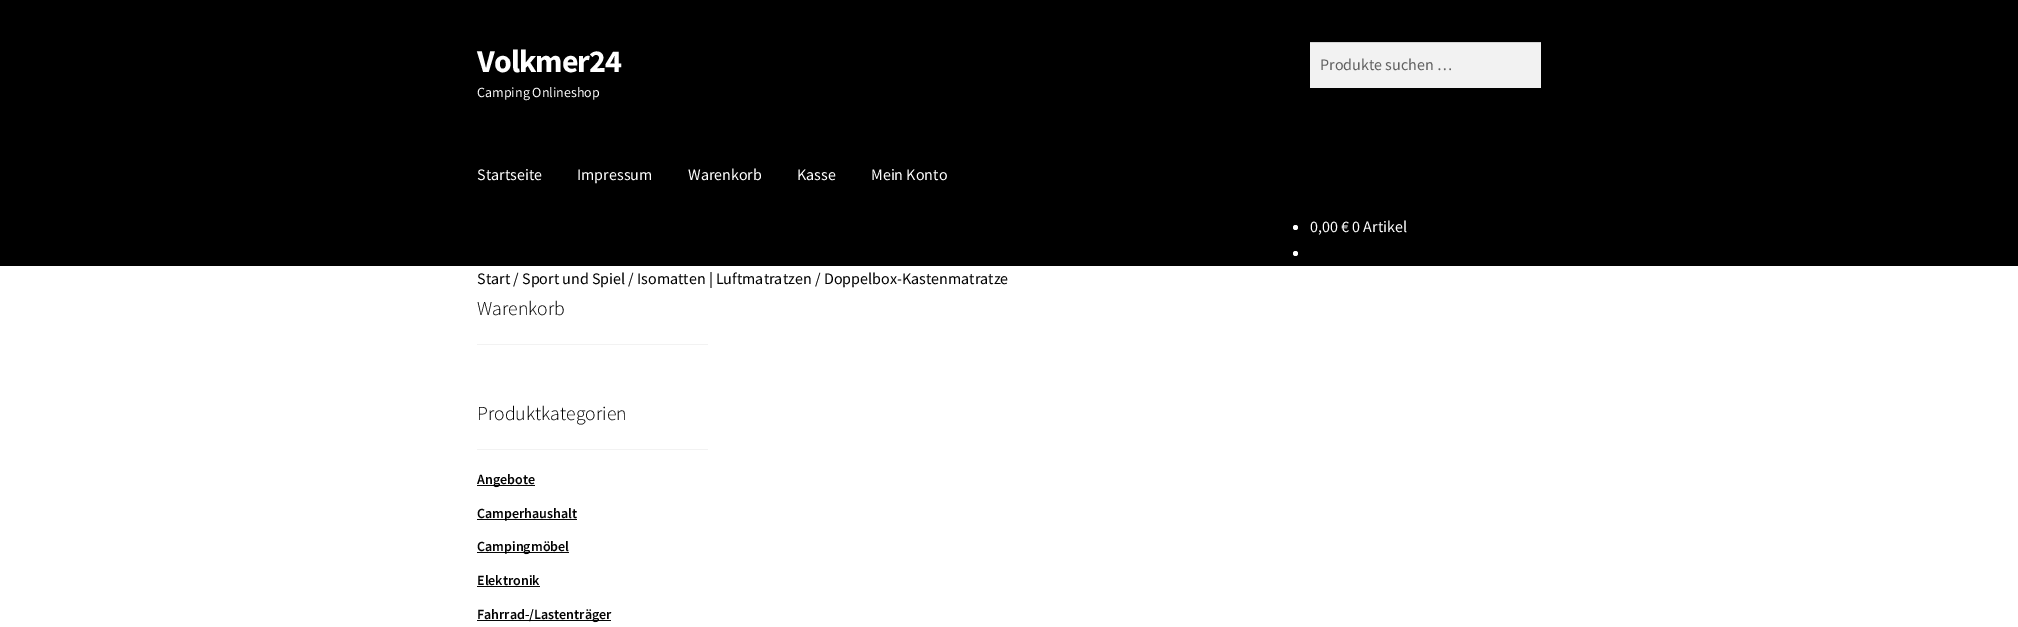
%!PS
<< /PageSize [2018 627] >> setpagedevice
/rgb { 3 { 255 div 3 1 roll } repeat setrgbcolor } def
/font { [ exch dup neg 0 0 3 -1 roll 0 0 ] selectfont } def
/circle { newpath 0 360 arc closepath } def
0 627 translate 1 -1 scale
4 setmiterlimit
255 255 255 rgb
0 0 2018 627 rectfill
[
  [0 0 2018 266 0 0 0]
  [1310 43 231 45 242 242 242]
  [1310 42 231 1 212 212 212]
] { aload pop rgb rectfill } forall
255 255 255 rgb
1295.5 227.5 2.5 circle fill
1295.5 253.5 2.5 circle fill
[
  [477 344 231 1 242 242 242]
  [477 449 231 1 242 242 242]
  [477 485 58 1 7 7 7]
  [477 519 100 1 7 7 7]
  [477 552 92 1 7 7 7]
  [477 586 63 1 7 7 7]
  [477 620 134 1 7 7 7]
] { aload pop rgb rectfill } forall
/SourceSansPro-Bold 32 font
255 255 255 rgb
477 72 moveto -1 0 (Volkmer24) ashow
/SourceSansPro-Regular 14 font
477 97 moveto (Camping Onlineshop) show
/SourceSansPro-Regular 16 font
97 97 97 rgb
1320 70 moveto (Produkte suchen …) show
255 255 255 rgb
[
  [(Startseite) 477 180]
  [(Impressum) 577 180]
  [(Warenkorb) 688 180]
  [(Kasse) 797 180]
  [(Mein Konto) 871 180]
  [(0,00 € 0 Artikel) 1310 232]
] { aload pop moveto show } forall
2 2 2 rgb
[
  [(Start) 477 284]
  [(/) 513 284]
  [(Sport und Spiel) 522 284]
  [(/) 628 284]
  [(Isomatten | Luftmatratzen) 637 284]
  [(/ Doppelbox-Kastenmatratze) 815 284]
] { aload pop moveto show } forall
/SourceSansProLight-Light 19.75 font
477 315 moveto (Warenkorb) show
477 420 moveto (Produktkategorien) show
/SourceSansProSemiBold-SemiBold 14 font
[
  [(Angebote) 477 484]
  [(Camperhaushalt) 477 518]
  [(Campingmöbel) 477 551]
  [(Elektronik) 477 585]
  [(Fahrrad-/Lastenträger) 477 619]
] { aload pop moveto show } forall
showpage
